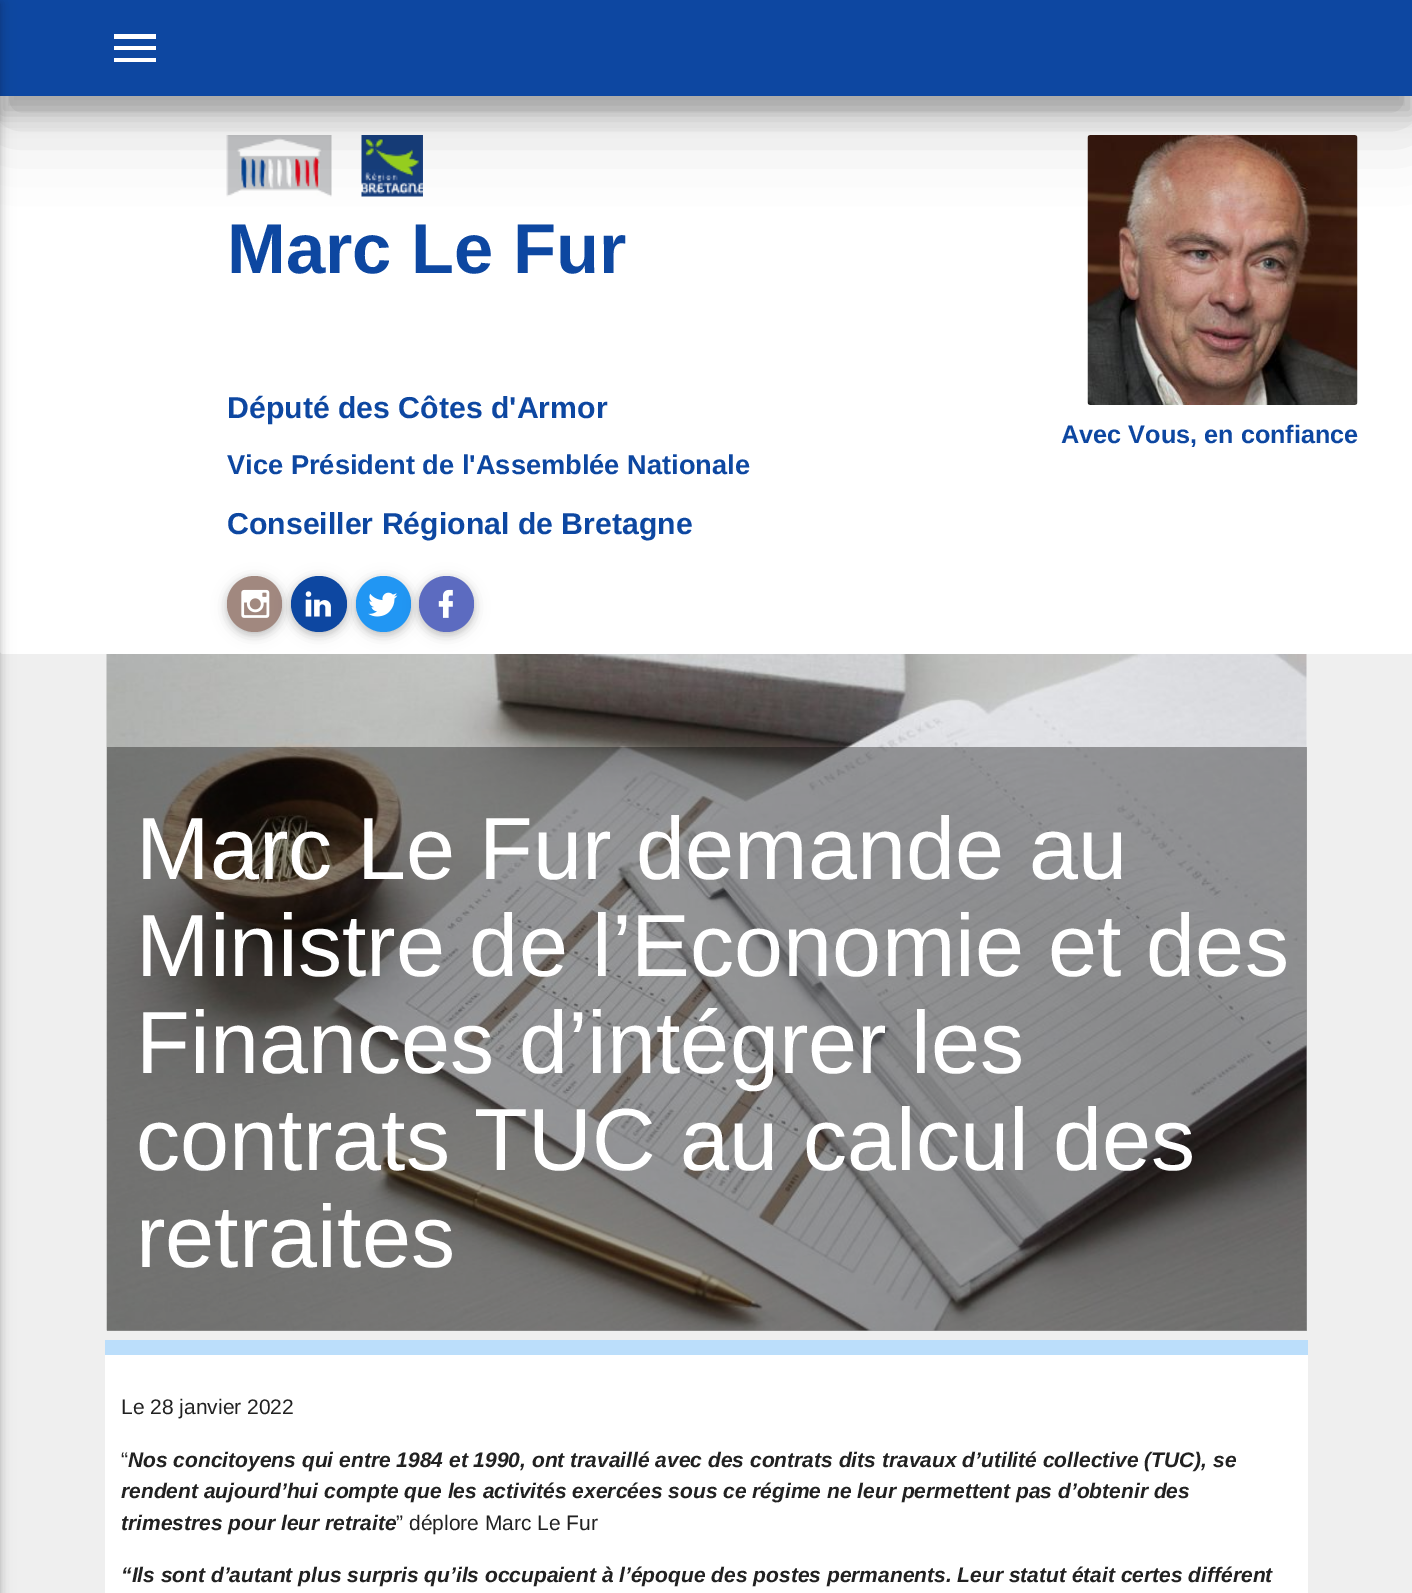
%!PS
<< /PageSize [1412 1593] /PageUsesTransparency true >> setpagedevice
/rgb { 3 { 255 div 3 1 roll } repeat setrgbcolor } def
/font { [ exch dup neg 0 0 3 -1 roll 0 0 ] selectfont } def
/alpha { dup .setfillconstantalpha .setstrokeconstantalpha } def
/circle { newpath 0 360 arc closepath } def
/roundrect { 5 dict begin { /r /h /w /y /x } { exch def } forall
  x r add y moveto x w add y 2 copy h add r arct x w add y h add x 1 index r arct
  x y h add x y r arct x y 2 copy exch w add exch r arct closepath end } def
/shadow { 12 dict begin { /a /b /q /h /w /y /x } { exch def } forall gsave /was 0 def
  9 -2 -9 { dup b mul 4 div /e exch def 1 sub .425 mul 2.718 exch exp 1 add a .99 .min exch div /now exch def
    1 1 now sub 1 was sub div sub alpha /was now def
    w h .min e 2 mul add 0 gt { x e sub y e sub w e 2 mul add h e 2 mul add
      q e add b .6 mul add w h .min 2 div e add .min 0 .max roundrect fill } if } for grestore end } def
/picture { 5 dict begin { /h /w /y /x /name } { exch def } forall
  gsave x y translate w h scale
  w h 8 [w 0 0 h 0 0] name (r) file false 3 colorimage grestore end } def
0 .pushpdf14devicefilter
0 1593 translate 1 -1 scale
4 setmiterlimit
239 239 239 rgb
0 0 1412 1593 rectfill
255 255 255 rgb
0 60 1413 594 3 roundrect fill
(img/1.rgb) 226 135 106 62 picture
(img/2.rgb) 361 135 62 62 picture
(img/7.rgb) 1087 135 271 270 picture
0 0 0 rgb
0 26 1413 96 0 37.5 0.19 shadow
0 18 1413 96 0 11 0.24 shadow
13 71 161 rgb
0 0 1412 96 rectfill
0 0 0 rgb
-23 3 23 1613 0 7.5 0.12 shadow
-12 3 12 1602 0 4 0.16 shadow
255 255 255 rgb
114 34 moveto 156 34 lineto 156 39 lineto 114 39 lineto closepath 114 50 moveto 114 46 lineto 156 46 lineto 156 50 lineto closepath 114 62 moveto 114 58 lineto 156 58 lineto 156 62 lineto closepath fill
(img/8.rgb) 106 654 1201 677 picture
0 0 0 rgb
227 579 55 56 27.5 7.5 0.12 shadow
227 579 55 56 27.5 4 0.16 shadow
161 136 127 rgb
227 576 55 56 27.5 roundrect fill
(img/3.rgb) 241 589 29 29 picture
0 0 0 rgb
291 579 56 56 28 7.5 0.12 shadow
291 579 56 56 28 4 0.16 shadow
13 71 161 rgb
319 604 28 circle fill
(img/4.rgb) 305 591 26 26 picture
0 0 0 rgb
356 579 55 56 27.5 7.5 0.12 shadow
356 579 55 56 27.5 4 0.16 shadow
33 150 243 rgb
356 576 55 56 27.5 roundrect fill
(img/5.rgb) 368 592 30 25 picture
0 0 0 rgb
419 579 55 56 27.5 7.5 0.12 shadow
419 579 55 56 27.5 4 0.16 shadow
92 107 192 rgb
419 576 55 56 27.5 roundrect fill
(img/6.rgb) 438 589 15 29 picture
0.35 alpha
[
  [107 747 1200 584 0 0 0]
] { aload pop rgb rectfill } forall
1 alpha
[
  [105 1340 1203 15 187 222 251]
  [105 1355 1203 238 255 255 255]
] { aload pop rgb rectfill } forall
/LiberationSans-Bold 70.5 font
13 71 161 rgb
227 273 moveto (Marc Le Fur) show
/LiberationSans-Bold 30.25 font
227 418 moveto (Député des Côtes d'Armor) show
/LiberationSans-Bold 27.25 font
227 474 moveto (Vice Président de l'Assemblée Nationale) show
/LiberationSans-Bold 30.25 font
227 534 moveto (Conseiller Régional de Bretagne) show
/LiberationSans-Bold 25.25 font
1061 443 moveto (Avec Vous, en confiance) show
/LiberationSans-Regular 88.25 font
255 255 255 rgb
[
  [(Marc Le Fur demande au) 136 879]
  [(Ministre de l’Economie et des) 136 976]
  [(Finances d’intégrer les) 136 1073]
  [(contrats TUC au calcul des) 136 1170]
  [(retraites) 136 1267]
] { aload pop moveto show } forall
/LiberationSans-Regular 21 font
33 33 33 rgb
121 1414 moveto (Le 28 janvier 2022) show
121 1467 moveto (“) show
/LiberationSans-BoldItalic 21 font
[
  [(Nos concitoyens qui entre 1984 et 1990, ont travaillé avec des contrats dits travaux d’utilité collective \(TUC\), se) 128 1467]
  [(rendent aujourd’hui compte que les activités exercées sous ce régime ne leur permettent pas d’obtenir des) 121 1498]
  [(trimestres pour leur retraite) 121 1530]
] { aload pop moveto show } forall
/LiberationSans-Regular 21 font
396 1530 moveto (” déplore Marc Le Fur) show
/LiberationSans-BoldItalic 21 font
121 1582 moveto (“Ils sont d’autant plus surpris qu’ils occupaient à l’époque des postes permanents. Leur statut était certes différent) show
.poppdf14devicefilter showpage
